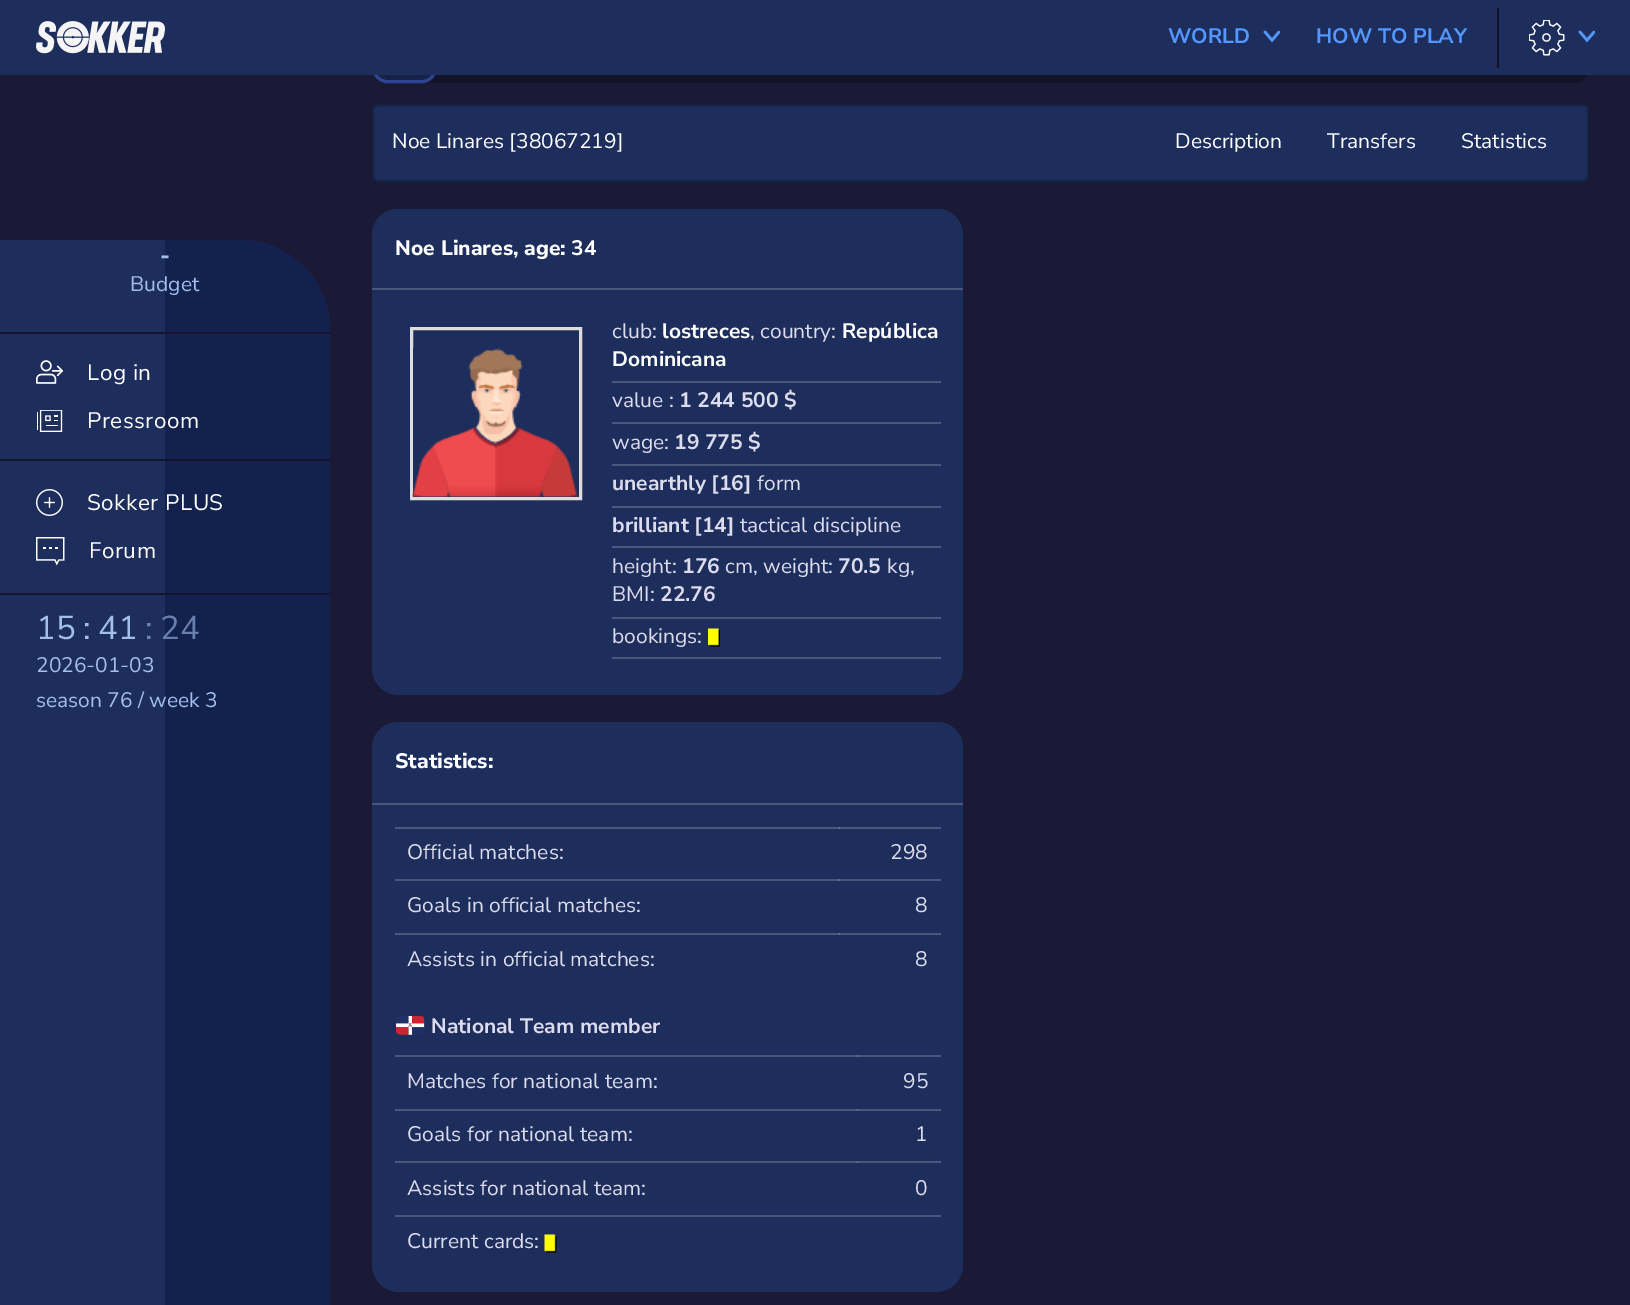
%!PS
<< /PageSize [1630 1305] >> setpagedevice
/rgb { 3 { 255 div 3 1 roll } repeat setrgbcolor } def
/font { [ exch dup neg 0 0 3 -1 roll 0 0 ] selectfont } def
/roundrect { 5 dict begin { /r /h /w /y /x } { exch def } forall
  x r add y moveto x w add y 2 copy h add r arct x w add y h add x 1 index r arct
  x y h add x y r arct x y 2 copy exch w add exch r arct closepath end } def
/picture { 5 dict begin { /h /w /y /x /name } { exch def } forall
  gsave x y translate w h scale
  w h 8 [w 0 0 h 0 0] name (r) file false 3 colorimage grestore end } def
0 1305 translate 1 -1 scale
4 setmiterlimit
26 26 55 rgb
0 0 1630 1305 rectfill
19 19 42 rgb
372 18 1217 65 15 roundrect fill
22 34 71 rgb
373.5 19.5 62 62 13.5 roundrect gsave fill grestore
45 69 146 rgb
3 setlinewidth
stroke
30 46 92 rgb
0 0 1630 75 rectfill
(img/1.rgb) 36 21 129 33 picture
(img/2.rgb) 1263 30 17 13 picture
18 18 39 rgb
1497 8 2 60 rectfill
(img/3.rgb) 1529 20 36 36 picture
(img/2.rgb) 1578 30 17 13 picture
30 46 92 rgb
0 240 moveto 240 240 lineto 289.5 240 330 280.5 330 330 curveto 330 1305 lineto 0 1305 lineto closepath fill
18 33 77 rgb
165 240 moveto 240 240 lineto 289.5 240 330 280.5 330 330 curveto 330 1305 lineto 165 1305 lineto closepath fill
21 21 48 rgb
0 332 330 2 rectfill
0 459 330 2 rectfill
(img/4.rgb) 36 360 27 24 picture
(img/5.rgb) 37 410 26 22 picture
0 593 330 2 rectfill
(img/6.rgb) 36 489 27 27 picture
(img/7.rgb) 36 537 29 29 picture
30 46 92 rgb
373 105 1215 76 5 roundrect gsave fill grestore
22 34 67 rgb
2 setlinewidth
stroke
30 46 92 rgb
372 209 591 486 27 roundrect fill
398 209 moveto 937 209 lineto 951.5 209 963 220.5 963 235 curveto 963 290 lineto 372 290 lineto 372 235 lineto 372 220.5 383.5 209 398 209 curveto closepath fill
75 88 125 rgb
372 288 591 2 rectfill
221 221 221 rgb
3 setlinewidth
411.5 328.5 169 170 rectstroke
(img/8.rgb) 412 348 166 149 picture
[
  [612 381 329 2 75 88 125]
  [612 422 329 2 75 88 125]
  [612 464 329 2 75 88 125]
  [612 506 329 2 75 88 125]
  [612 546 329 2 75 88 125]
  [612 617 329 2 75 88 125]
  [612 657 329 2 75 88 125]
] { aload pop rgb rectfill } forall
(img/9.rgb) 708 628 12 19 picture
30 46 92 rgb
372 722 591 570 27 roundrect fill
[
  [395 1055 546 2 75 88 125]
  [395 1109 546 2 75 88 125]
  [395 1161 546 2 75 88 125]
  [395 827 546 2 75 88 125]
  [395 879 546 2 75 88 125]
  [395 933 546 2 75 88 125]
] { aload pop rgb rectfill } forall
30 46 92 rgb
398 722 moveto 937 722 lineto 951.5 722 963 733.5 963 748 curveto 963 804 lineto 372 804 lineto 372 748 lineto 372 733.5 383.5 722 398 722 curveto closepath fill
[
  [372 803 591 2 75 88 125]
  [839 827 1 2 111 121 151]
  [839 879 1 2 111 121 151]
  [839 933 1 2 111 121 151]
] { aload pop rgb rectfill } forall
(img/10.rgb) 396 1016 29 19 picture
[
  [857 1055 1 2 111 121 151]
  [857 1109 1 2 111 121 151]
  [857 1161 1 2 111 121 151]
  [395 1215 546 2 75 88 125]
] { aload pop rgb rectfill } forall
(img/11.rgb) 544 1234 13 19 picture
/NunitoSans-Bold 21 font
83 151 255 rgb
1168 43 moveto (WORLD) show
1316 43 moveto (HOW TO PLAY) show
/NunitoSans-ExtraBold 22.5 font
162 190 233 rgb
160 263 moveto (-) show
/NunitoSans-Regular 21 font
130 291 moveto (Budget) show
/NunitoSans-Regular 22.5 font
255 255 255 rgb
87 380 moveto 0.5 0 (Log in) ashow
87 428 moveto 0.5 0 (Pressroom) ashow
87 510 moveto 0.5 0 (Sokker PLUS) ashow
89 558 moveto 0.5 0 (Forum) ashow
/NunitoSans-Regular 33 font
162 190 233 rgb
[
  [(15) 36 639]
  [(:) 83 639]
  [(41) 98 639]
] { aload pop moveto show } forall
109 132 177 rgb
145 639 moveto (:) show
105 127 171 rgb
160 639 moveto (24) show
/NunitoSans-Regular 21 font
162 190 233 rgb
36 672 moveto (2026-01-03) show
36 707 moveto (season 76 / week 3) show
255 255 255 rgb
[
  [(Noe Linares [38067219]) 392 148]
  [(Description) 1175 148]
  [(Transfers) 1327 148]
  [(Statistics) 1461 148]
] { aload pop moveto show } forall
/NunitoSans-ExtraBold 21 font
395 255 moveto (Noe Linares, age:) show
/NunitoSans-Bold 21 font
571 255 moveto (34) show
/NunitoSans-Regular 21 font
220 220 237 rgb
612 338 moveto (club:) show
/NunitoSans-Bold 21 font
255 255 255 rgb
662 338 moveto (lostreces) show
/NunitoSans-Regular 21 font
220 220 237 rgb
750 338 moveto (, country:) show
/NunitoSans-Bold 21 font
255 255 255 rgb
842 338 moveto (República) show
612 366 moveto (Dominicana) show
/NunitoSans-Regular 21 font
220 220 237 rgb
612 407 moveto (value :) show
/NunitoSans-Bold 21 font
679 407 moveto (1 244 500 $) show
/NunitoSans-Regular 21 font
612 449 moveto (wage:) show
/NunitoSans-Bold 21 font
674 449 moveto (19 775 $) show
612 490 moveto (unearthly [16]) show
/NunitoSans-Regular 21 font
757 490 moveto (form) show
/NunitoSans-Bold 21 font
612 532 moveto (brilliant [14]) show
/NunitoSans-Regular 21 font
740 532 moveto (tactical discipline) show
612 573 moveto (height:) show
/NunitoSans-Bold 21 font
682 573 moveto (176) show
/NunitoSans-Regular 21 font
725 573 moveto (cm, weight:) show
/NunitoSans-Bold 21 font
838 573 moveto (70.5) show
/NunitoSans-Regular 21 font
887 573 moveto (kg,) show
612 601 moveto (BMI:) show
/NunitoSans-Bold 21 font
660 601 moveto (22.76) show
/NunitoSans-Regular 21 font
612 643 moveto (bookings:) show
/NunitoSans-ExtraBold 21 font
255 255 255 rgb
395 768 moveto (Statistics:) show
/NunitoSans-Regular 21 font
220 220 237 rgb
[
  [(Official matches:) 407 859]
  [(298) 890 859]
  [(Goals in official matches:) 407 912]
  [(8) 915 912]
  [(Assists in official matches:) 407 966]
  [(8) 915 966]
] { aload pop moveto show } forall
/NunitoSans-Bold 21 font
431 1033 moveto (National Team member) show
/NunitoSans-Regular 21 font
[
  [(Matches for national team:) 407 1088]
  [(95) 903 1088]
  [(Goals for national team:) 407 1141]
  [(1) 915 1141]
  [(Assists for national team:) 407 1195]
  [(0) 915 1195]
  [(Current cards:) 407 1248]
] { aload pop moveto show } forall
showpage
